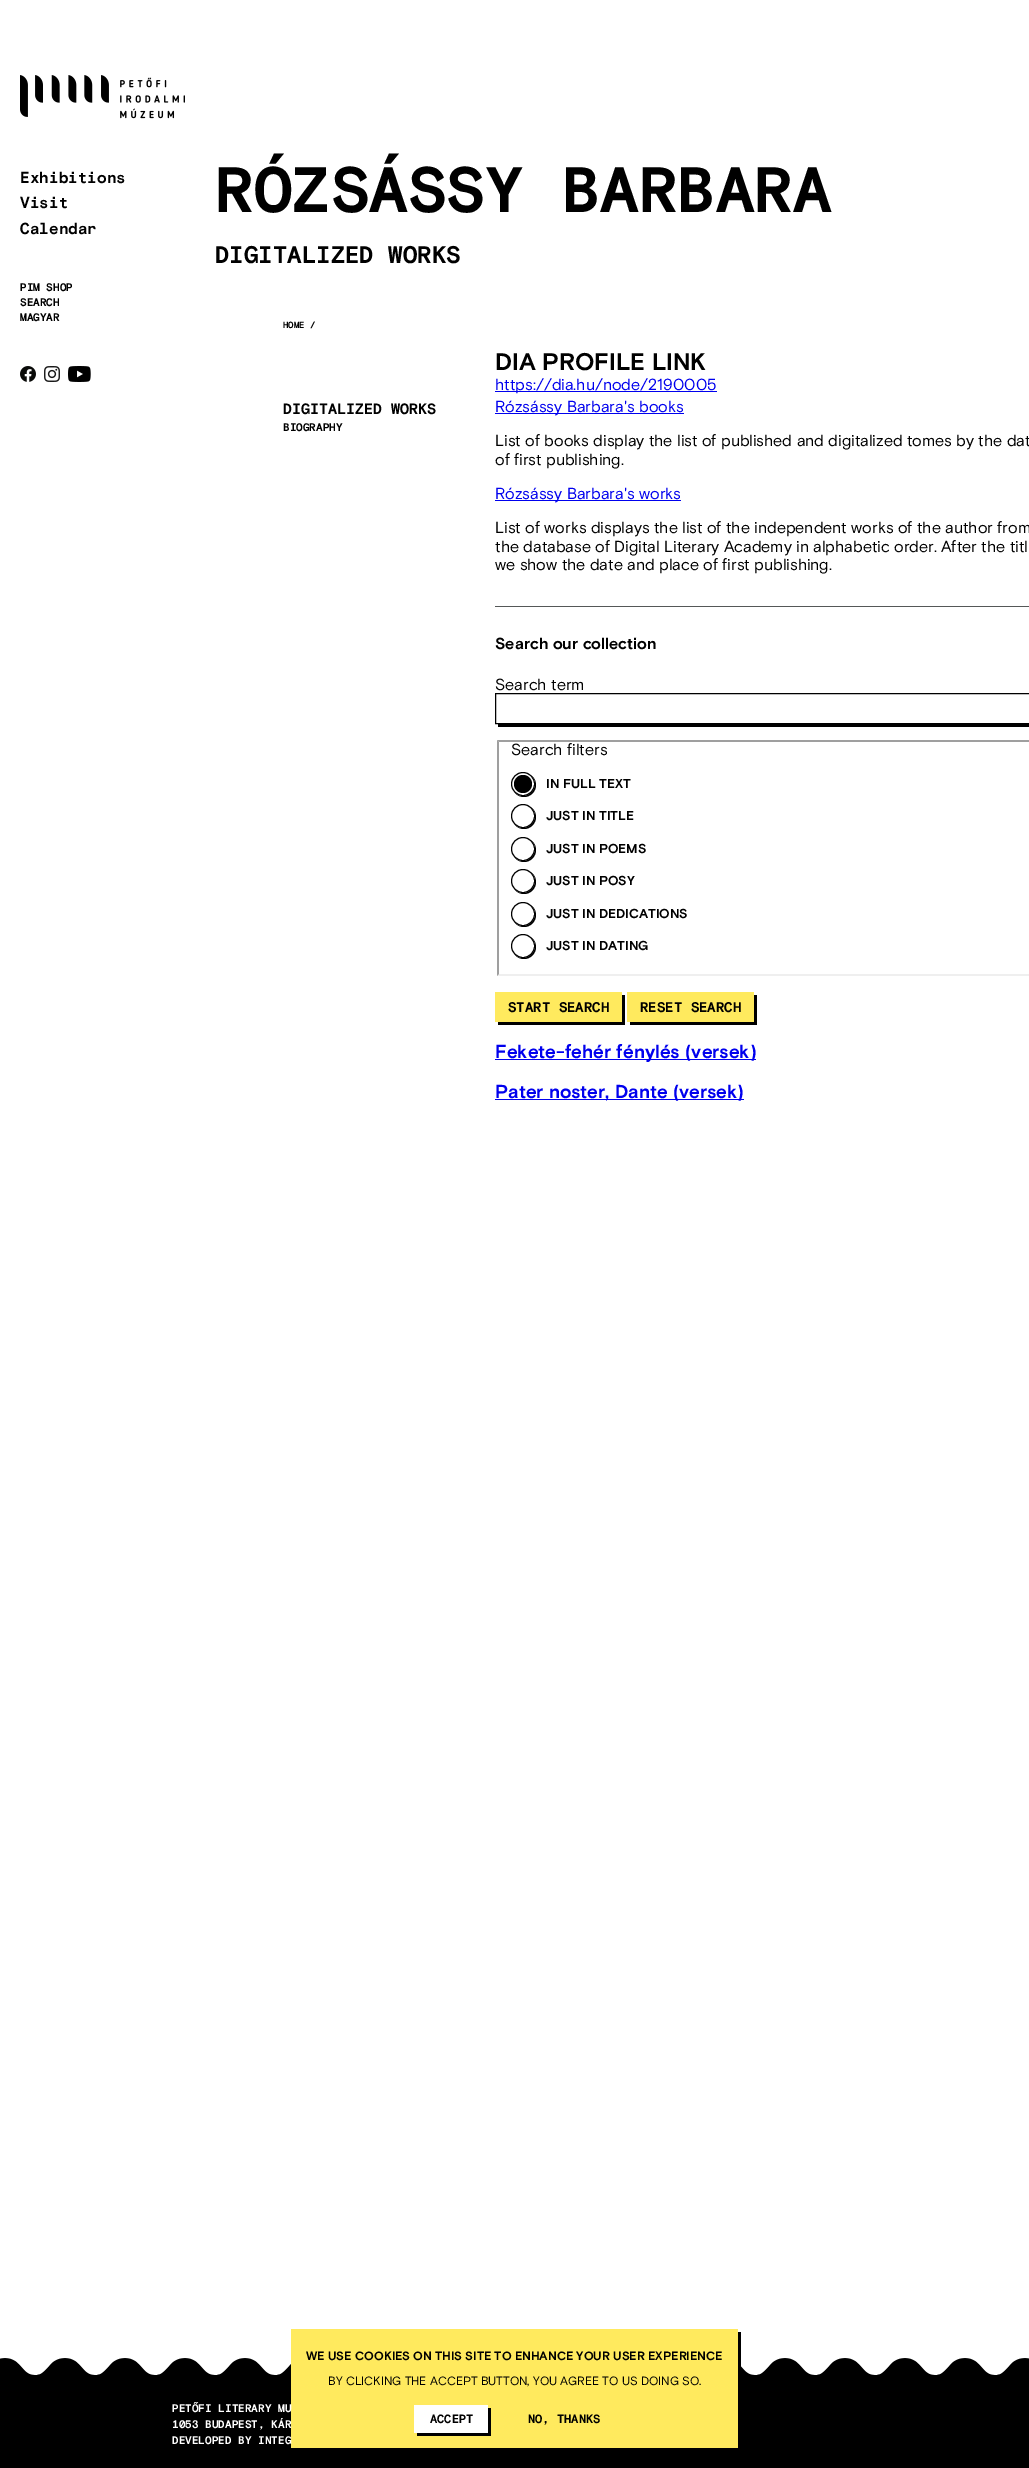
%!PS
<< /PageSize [1029 2468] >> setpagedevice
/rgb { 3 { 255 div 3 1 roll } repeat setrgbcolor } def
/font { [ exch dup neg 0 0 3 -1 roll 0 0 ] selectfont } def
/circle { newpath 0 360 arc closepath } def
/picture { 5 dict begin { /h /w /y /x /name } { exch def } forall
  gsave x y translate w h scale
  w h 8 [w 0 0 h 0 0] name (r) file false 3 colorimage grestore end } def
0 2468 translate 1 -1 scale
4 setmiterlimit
255 255 255 rgb
0 0 1029 2468 rectfill
(img/1.rgb) 20 75 165 44 picture
(img/2.rgb) 20 366 16 16 picture
(img/3.rgb) 44 366 16 16 picture
(img/4.rgb) 68 366 23 16 picture
[
  [495 391 222 1 0 0 238]
  [495 413 189 1 0 0 238]
  [495 500 186 1 0 0 238]
  [495 606 534 1 85 88 88]
] { aload pop rgb rectfill } forall
0 0 0 rgb
498 724 moveto 498 727 lineto 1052 727 lineto 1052 696 lineto 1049 696 lineto 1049 724 lineto closepath fill
495.5 693.5 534 30 rectstroke
159 159 159 rgb
497 740 moveto 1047 740 lineto 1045 742 lineto 499 742 lineto closepath fill
239 239 239 rgb
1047 976 moveto 497 976 lineto 499 974 lineto 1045 974 lineto closepath fill
159 159 159 rgb
497 976 moveto 497 740 lineto 499 742 lineto 499 974 lineto closepath fill
0 0 0 rgb
515 793 moveto 519.5 798 527.5 798.5 532.5 793.5 curveto 537.5 788.5 537 780.5 532 776 curveto 542 787 526 803 515 793 curveto closepath fill
255 255 255 rgb
523 784 11.5 circle gsave fill grestore
0 0 0 rgb
stroke
523 784 9 circle fill
515 825 moveto 519.5 830 527.5 830.5 532.5 825.5 curveto 537.5 820.5 537 812.5 532 808 curveto 542 819 526 835 515 825 curveto closepath fill
255 255 255 rgb
523 816 11.5 circle gsave fill grestore
0 0 0 rgb
stroke
515 858 moveto 519.5 863 527.5 863.5 532.5 858.5 curveto 537.5 853.5 537 845.5 532 841 curveto 542 852 526 868 515 858 curveto closepath fill
255 255 255 rgb
523 849 11.5 circle gsave fill grestore
0 0 0 rgb
stroke
515 890 moveto 519.5 895 527.5 895.5 532.5 890.5 curveto 537.5 885.5 537 877.5 532 873 curveto 542 884 526 900 515 890 curveto closepath fill
255 255 255 rgb
523 881 11.5 circle gsave fill grestore
0 0 0 rgb
stroke
515 923 moveto 519.5 928 527.5 928.5 532.5 923.5 curveto 537.5 918.5 537 910.5 532 906 curveto 542 917 526 933 515 923 curveto closepath fill
255 255 255 rgb
523 914 11.5 circle gsave fill grestore
0 0 0 rgb
stroke
515 955 moveto 519.5 960 527.5 960.5 532.5 955.5 curveto 537.5 950.5 537 942.5 532 938 curveto 542 949 526 965 515 955 curveto closepath fill
255 255 255 rgb
523 946 11.5 circle gsave fill grestore
0 0 0 rgb
stroke
498 1022 moveto 498 1025 lineto 625 1025 lineto 625 995 lineto 622 995 lineto 622 1022 lineto closepath fill
255 234 94 rgb
495 992 127 30 rectfill
0 0 0 rgb
630 1022 moveto 630 1025 lineto 757 1025 lineto 757 995 lineto 754 995 lineto 754 1022 lineto closepath fill
[
  [627 992 127 30 255 234 94]
  [495 1059 261 1 0 0 238]
  [495 1099 249 1 0 0 238]
  [0 2380 1029 88 0 0 0]
] { aload pop rgb rectfill } forall
(img/5.rgb) 0 2358 1029 22 picture
294 2448 moveto 294 2451 lineto 741 2451 lineto 741 2332 lineto 738 2332 lineto 738 2448 lineto closepath fill
255 234 94 rgb
291 2329 447 119 rectfill
0 0 0 rgb
417 2433 moveto 417 2436 lineto 491 2436 lineto 491 2408 lineto 488 2408 lineto 488 2433 lineto closepath fill
255 255 255 rgb
414 2405 74 28 rectfill
/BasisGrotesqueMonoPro-Bold 16 font
0 0 0 rgb
[
  [(Exhibitions) 20 183]
  [(Visit) 20 208]
  [(Calendar) 20 234]
] { aload pop moveto show } forall
/BasisGrotesqueMonoPro-Bold 11 font
[
  [(PIM SHOP) 20 291]
  [(SEARCH) 20 306]
  [(MAGYAR) 20 321]
] { aload pop moveto show } forall
/BasisGrotesqueMonoPro-Bold 64 font
215 212 moveto (RÓZSÁSSY BARBARA) show
/BasisGrotesqueMonoPro-Bold 24 font
215 263 moveto (DIGITALIZED WORKS) show
/BasisGrotesqueMonoPro-Bold 9 font
283 328 moveto (HOME /) show
/BasisGrotesqueMonoPro-Bold 15 font
283 414 moveto (DIGITALIZED WORKS) show
/BasisGrotesqueMonoPro-Bold 11 font
283 431 moveto (BIOGRAPHY) show
/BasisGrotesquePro-Bold 24 font
495 370 moveto (DIA PROFILE LINK) show
/BasisGrotesquePro-Regular 16 font
0 0 238 rgb
495 390 moveto (https://dia.hu/node/2190005) show
495 412 moveto (Rózsássy Barbara's books) show
0 0 0 rgb
495 446 moveto (List of books display the list of published and digitalized tomes by the dat) show
495 465 moveto (of first publishing.) show
0 0 238 rgb
495 499 moveto (Rózsássy Barbara's works) show
0 0 0 rgb
[
  [(List of works displays the list of the independent works of the author from) 495 533]
  [(the database of Digital Literary Academy in alphabetic order. After the titl) 495 552]
  [(we show the date and place of first publishing.) 495 570]
] { aload pop moveto show } forall
/BasisGrotesquePro-Bold 16 font
495 649 moveto (Search our collection) show
/BasisGrotesquePro-Regular 16 font
495 690 moveto (Search term) show
511 755 moveto (Search filters) show
/BasisGrotesquePro-Bold 13 font
[
  [(IN FULL TEXT) 546 788]
  [(JUST IN TITLE) 546 820]
  [(JUST IN POEMS) 546 853]
  [(JUST IN POSY) 546 885]
  [(JUST IN DEDICATIONS) 546 918]
  [(JUST IN DATING) 546 950]
] { aload pop moveto show } forall
/BasisGrotesqueMonoPro-Bold 14 font
508 1012 moveto (START SEARCH) show
640 1012 moveto (RESET SEARCH) show
/BasisGrotesquePro-Bold 18.75 font
0 0 238 rgb
495 1058 moveto (Fekete-fehér fénylés \(versek\)) show
495 1098 moveto (Pater noster, Dante \(versek\)) show
/BasisGrotesqueMonoPro-Bold 11 font
255 255 255 rgb
[
  [(PETŐFI LITERARY MU) 172 2412]
  [(1053 BUDAPEST, KÁR) 172 2428]
  [(DEVELOPED BY INTEG) 172 2444]
] { aload pop moveto show } forall
/BasisGrotesquePro-Bold 12 font
0 0 0 rgb
306 2360 moveto (WE USE COOKIES ON THIS SITE TO ENHANCE YOUR USER EXPERIENCE) show
/BasisGrotesquePro-Regular 12 font
328 2385 moveto (BY CLICKING THE ACCEPT BUTTON, YOU AGREE TO US DOING SO.) show
/BasisGrotesqueMonoPro-Bold 12 font
430 2423 moveto (ACCEPT) show
528 2423 moveto (NO, THANKS) show
showpage
